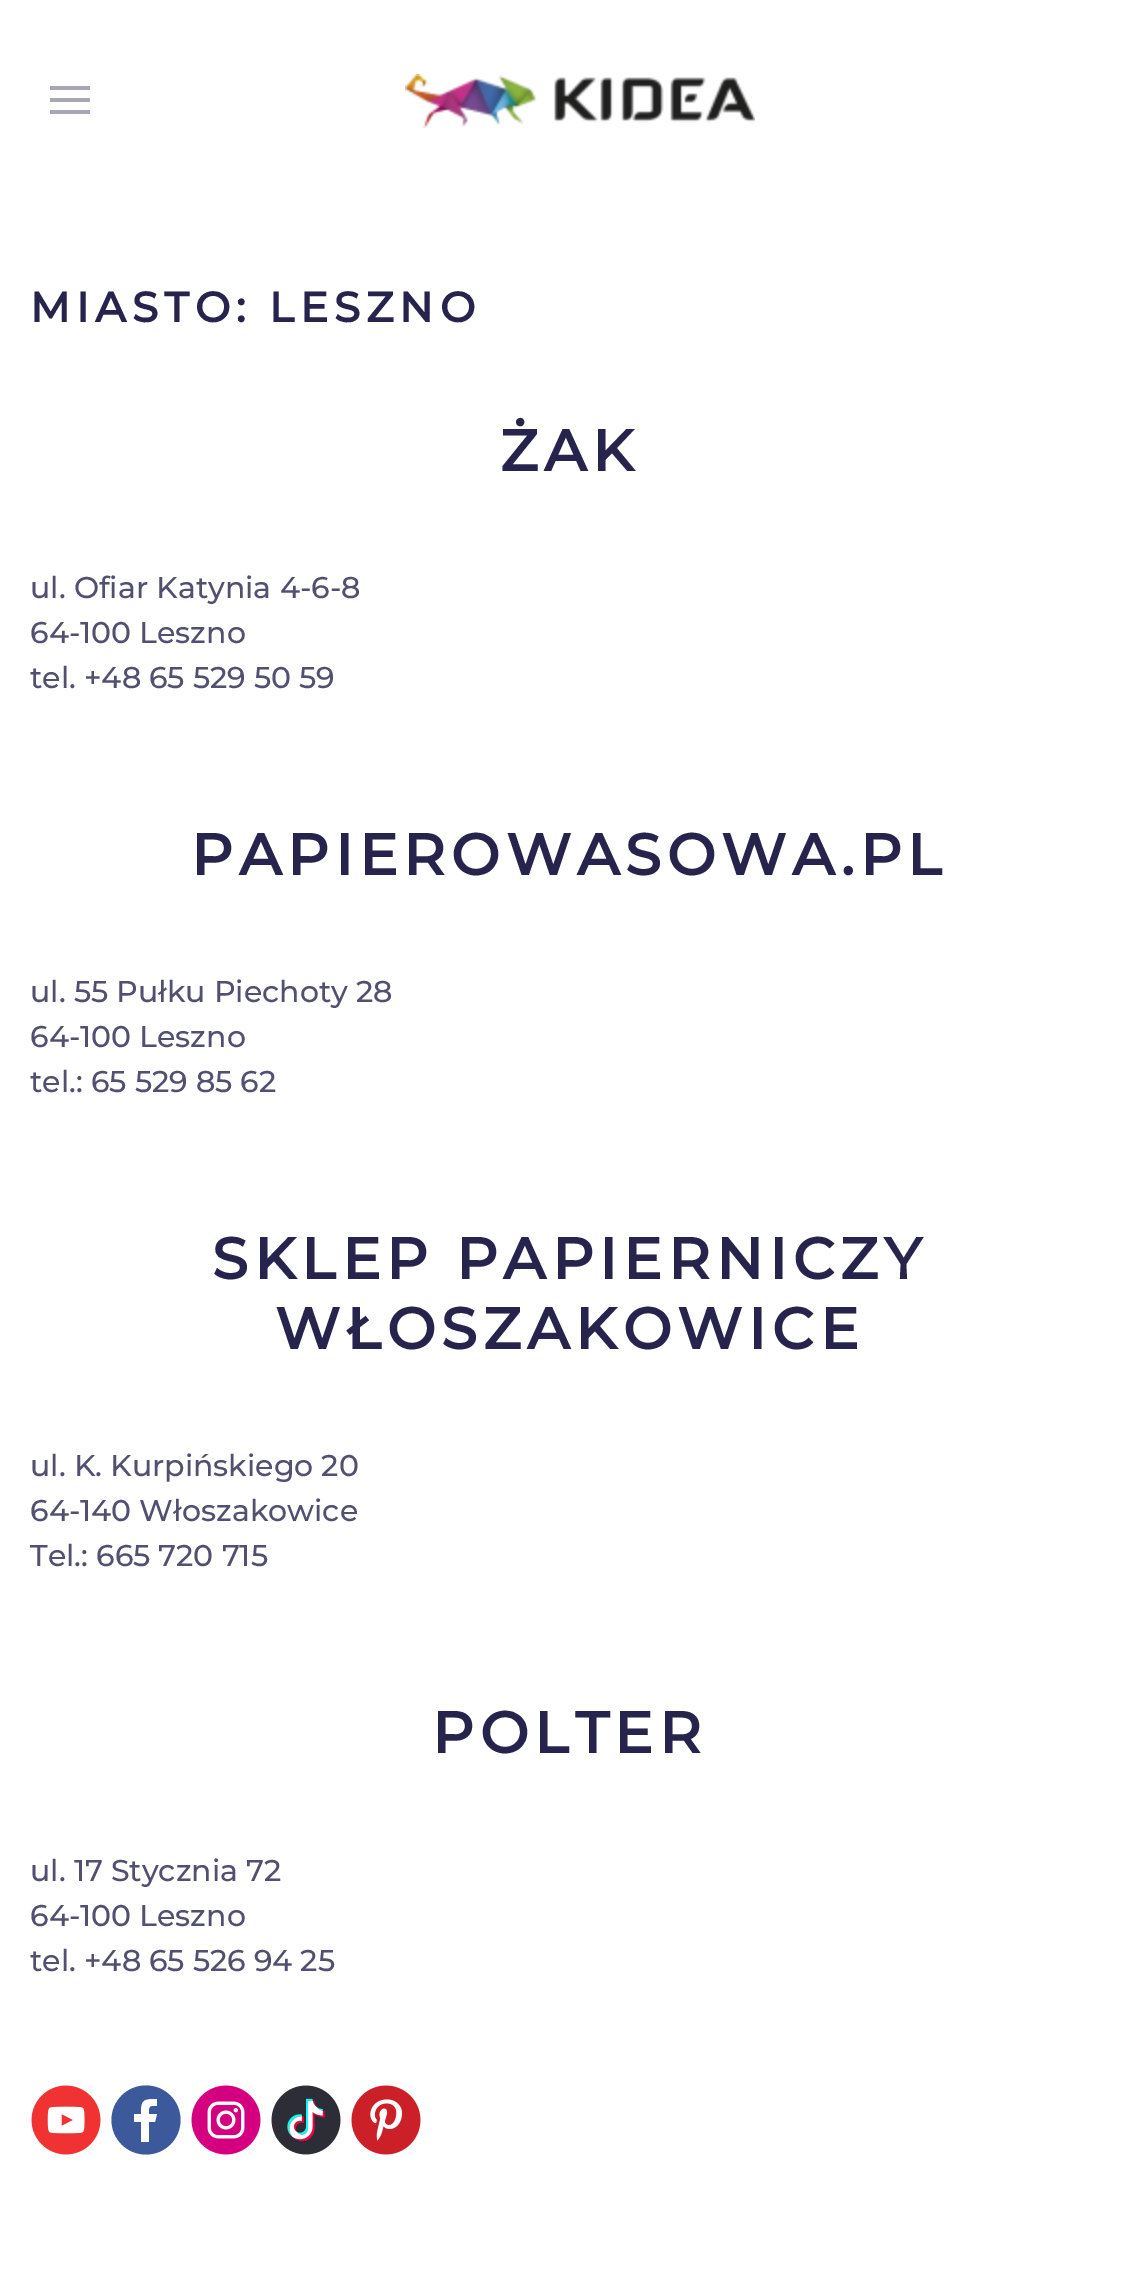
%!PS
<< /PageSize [1139 2269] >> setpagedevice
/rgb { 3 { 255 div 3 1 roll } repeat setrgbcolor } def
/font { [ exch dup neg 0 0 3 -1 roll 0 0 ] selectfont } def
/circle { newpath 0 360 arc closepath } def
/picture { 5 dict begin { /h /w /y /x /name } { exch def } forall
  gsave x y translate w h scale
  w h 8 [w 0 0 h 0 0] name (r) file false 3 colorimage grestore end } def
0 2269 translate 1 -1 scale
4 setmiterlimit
255 255 255 rgb
0 0 1139 2269 rectfill
[
  [50 86 40 4 168 167 183]
  [50 98 40 4 168 167 183]
  [50 110 40 4 168 167 183]
] { aload pop rgb rectfill } forall
(img/1.rgb) 405 74 350 54 picture
(img/2.rgb) 31 2085 70 70 picture
60 90 155 rgb
146 2120 34.5 circle fill
(img/3.rgb) 191 2085 70 70 picture
(img/4.rgb) 271 2085 70 70 picture
(img/5.rgb) 351 2085 70 70 picture
255 255 255 rgb
152 2106 moveto 157 2106 lineto 157 2099 lineto 143 2099 141 2100 141 2114 curveto 134 2114 lineto 134 2122 lineto 141 2122 lineto 141 2142 lineto 149 2142 lineto 149 2122 lineto 155 2122 lineto 157 2114 lineto 149 2114 lineto 149 2111 148 2106 152 2106 curveto closepath fill
/Montserrat-Bold 42 font
38 36 76 rgb
30 322 moveto 6 0 (MIASTO: LESZNO) ashow
/Montserrat-Bold 57.75 font
500 471 moveto 6 0 (ŻAK) ashow
/Montserrat-Thin 30 font
81 80 112 rgb
[
  [(ul. Ofiar Katynia 4-6-8) 30 598]
  [(64-100 Leszno) 30 643]
  [(tel. +48 65 529 50 59) 30 688]
] { aload pop moveto show } forall
/Montserrat-Bold 57.75 font
38 36 76 rgb
191 875 moveto 6 0 (PAPIEROWASOWA.PL) ashow
/Montserrat-Thin 30 font
81 80 112 rgb
[
  [(ul. 55 Pułku Piechoty 28) 30 1002]
  [(64-100 Leszno) 30 1047]
  [(tel.: 65 529 85 62) 30 1092]
] { aload pop moveto show } forall
/Montserrat-Bold 57.75 font
38 36 76 rgb
212 1279 moveto 6 0 (SKLEP PAPIERNICZY) ashow
275 1349 moveto 6 0 (WŁOSZAKOWICE) ashow
/Montserrat-Thin 30 font
81 80 112 rgb
[
  [(ul. K. Kurpińskiego 20) 30 1476]
  [(64-140 Włoszakowice) 30 1521]
  [(Tel.: 665 720 715) 30 1566]
] { aload pop moveto show } forall
/Montserrat-Bold 57.75 font
38 36 76 rgb
432 1753 moveto 6 0 (POLTER) ashow
/Montserrat-Thin 30 font
81 80 112 rgb
[
  [(ul. 17 Stycznia 72) 30 1881]
  [(64-100 Leszno) 30 1926]
  [(tel. +48 65 526 94 25) 30 1971]
] { aload pop moveto show } forall
showpage
